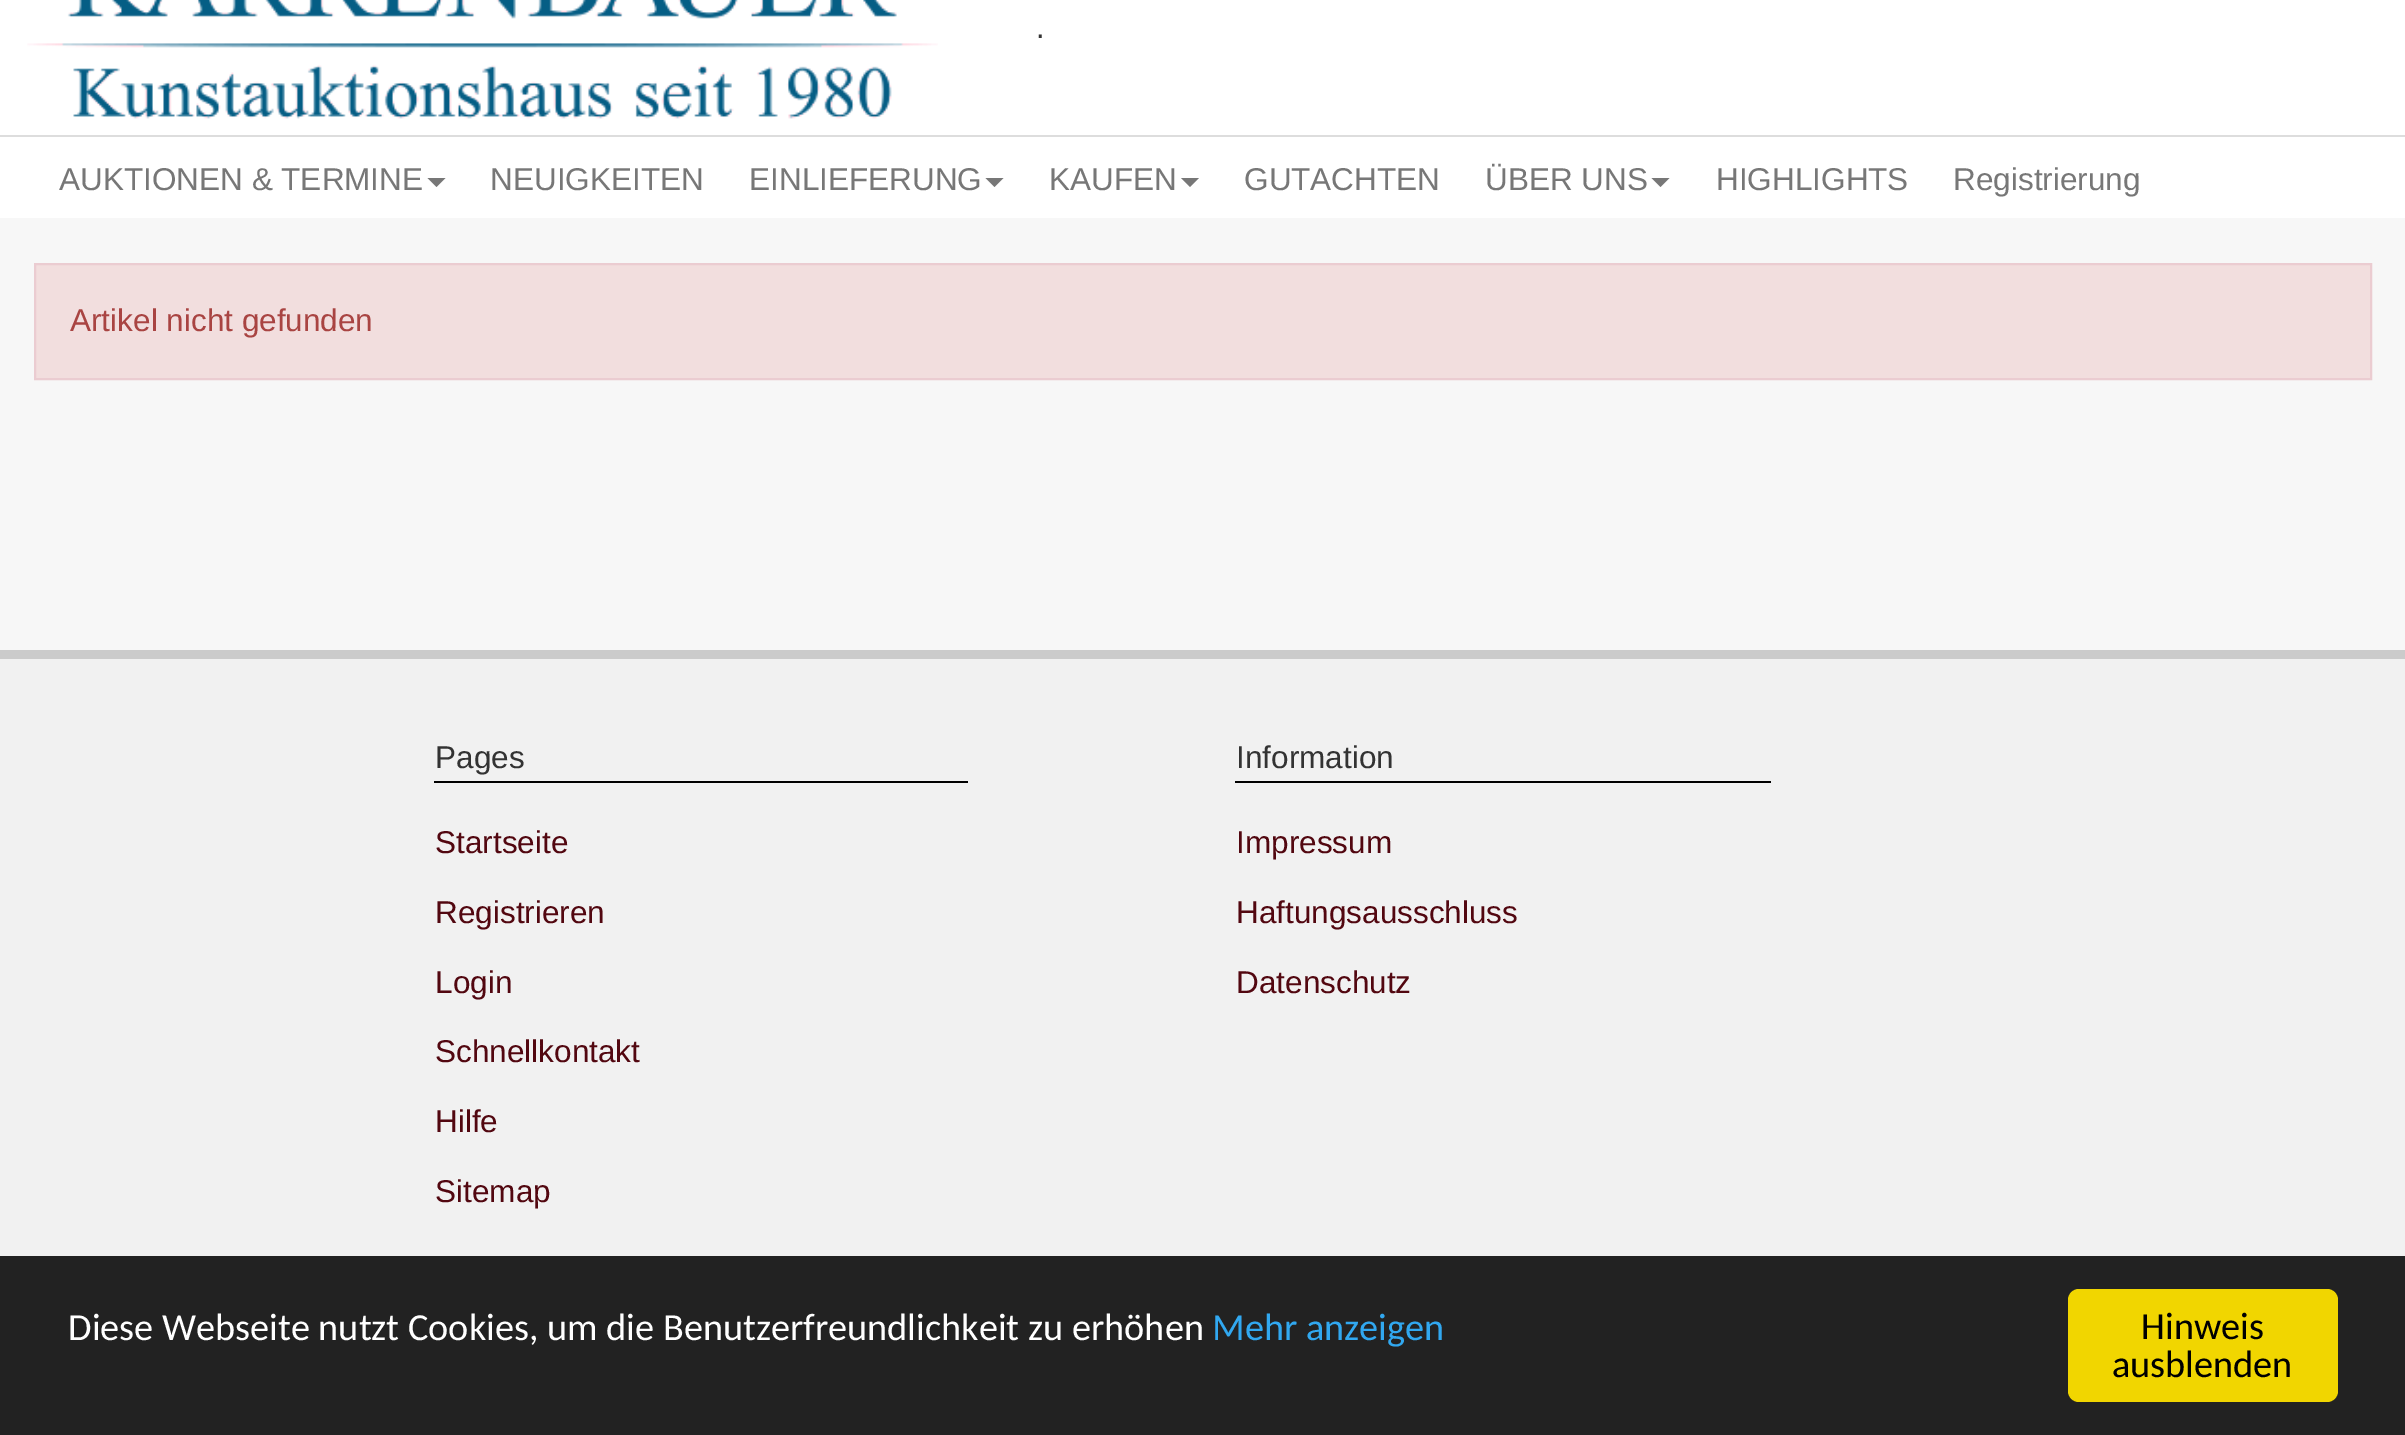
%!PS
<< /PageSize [2405 1435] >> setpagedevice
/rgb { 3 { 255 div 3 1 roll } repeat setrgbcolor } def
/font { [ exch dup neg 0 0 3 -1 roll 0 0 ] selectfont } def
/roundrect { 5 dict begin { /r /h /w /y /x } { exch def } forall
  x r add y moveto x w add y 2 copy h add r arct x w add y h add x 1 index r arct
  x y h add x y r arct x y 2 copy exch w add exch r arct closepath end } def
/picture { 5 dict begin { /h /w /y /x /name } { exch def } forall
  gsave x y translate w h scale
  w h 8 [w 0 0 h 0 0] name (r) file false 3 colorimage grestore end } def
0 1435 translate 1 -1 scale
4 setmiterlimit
247 247 247 rgb
0 0 2405 1435 rectfill
255 255 255 rgb
0 0 2405 135 rectfill
(img/1.rgb) 27 0 911 119 picture
0 137 2405 81 rectfill
221 221 221 rgb
0 135 2405 2 rectfill
119 119 119 rgb
427.5 178 moveto 445.5 178 lineto 436.5 187 lineto closepath fill
985.5 178 moveto 1003.5 178 lineto 994.5 187 lineto closepath fill
1181 178 moveto 1199 178 lineto 1190 187 lineto closepath fill
1651.5 178 moveto 1669.5 178 lineto 1660.5 187 lineto closepath fill
242 222 222 rgb
35 264 moveto 2371 264 lineto 2371 379 lineto 35 379 lineto closepath gsave fill grestore
235 204 209 rgb
2 setlinewidth
stroke
[
  [0 659 2405 597 241 241 241]
  [0 650 2405 9 203 203 203]
  [434 781 534 2 0 0 0]
  [1235 781 536 2 0 0 0]
  [0 1256 2405 179 34 34 34]
] { aload pop rgb rectfill } forall
241 214 0 rgb
2068 1289 270 113 11 roundrect fill
/LiberationSans-Regular 31.5 font
51 51 51 rgb
1036 38 moveto (.) show
119 119 119 rgb
[
  [(AUKTIONEN & TERMINE) 59 190]
  [(NEUIGKEITEN) 490 190]
  [(EINLIEFERUNG) 749 190]
  [(KAUFEN) 1049 190]
  [(GUTACHTEN) 1244 190]
  [(ÜBER UNS) 1485 190]
  [(HIGHLIGHTS) 1716 190]
  [(Registrierung) 1953 190]
] { aload pop moveto show } forall
169 68 66 rgb
70 331 moveto (Artikel nicht gefunden) show
51 51 51 rgb
435 768 moveto (Pages) show
82 7 16 rgb
[
  [(Startseite) 435 853]
  [(Registrieren) 435 923]
  [(Login) 435 993]
  [(Schnellkontakt) 435 1062]
  [(Hilfe) 435 1132]
  [(Sitemap) 435 1202]
] { aload pop moveto show } forall
51 51 51 rgb
1236 768 moveto (Information) show
82 7 16 rgb
[
  [(Impressum) 1236 853]
  [(Haftungsausschluss) 1236 923]
  [(Datenschutz) 1236 993]
] { aload pop moveto show } forall
/Carlito-Regular 38.25 font
255 255 255 rgb
68 1340 moveto (Diese Webseite nutzt Cookies, um die Benutzerfreundlichkeit zu erhöhen) show
49 168 240 rgb
1212 1340 moveto (Mehr anzeigen) show
0 0 0 rgb
2141 1339 moveto (Hinweis) show
2112 1377 moveto (ausblenden) show
showpage
